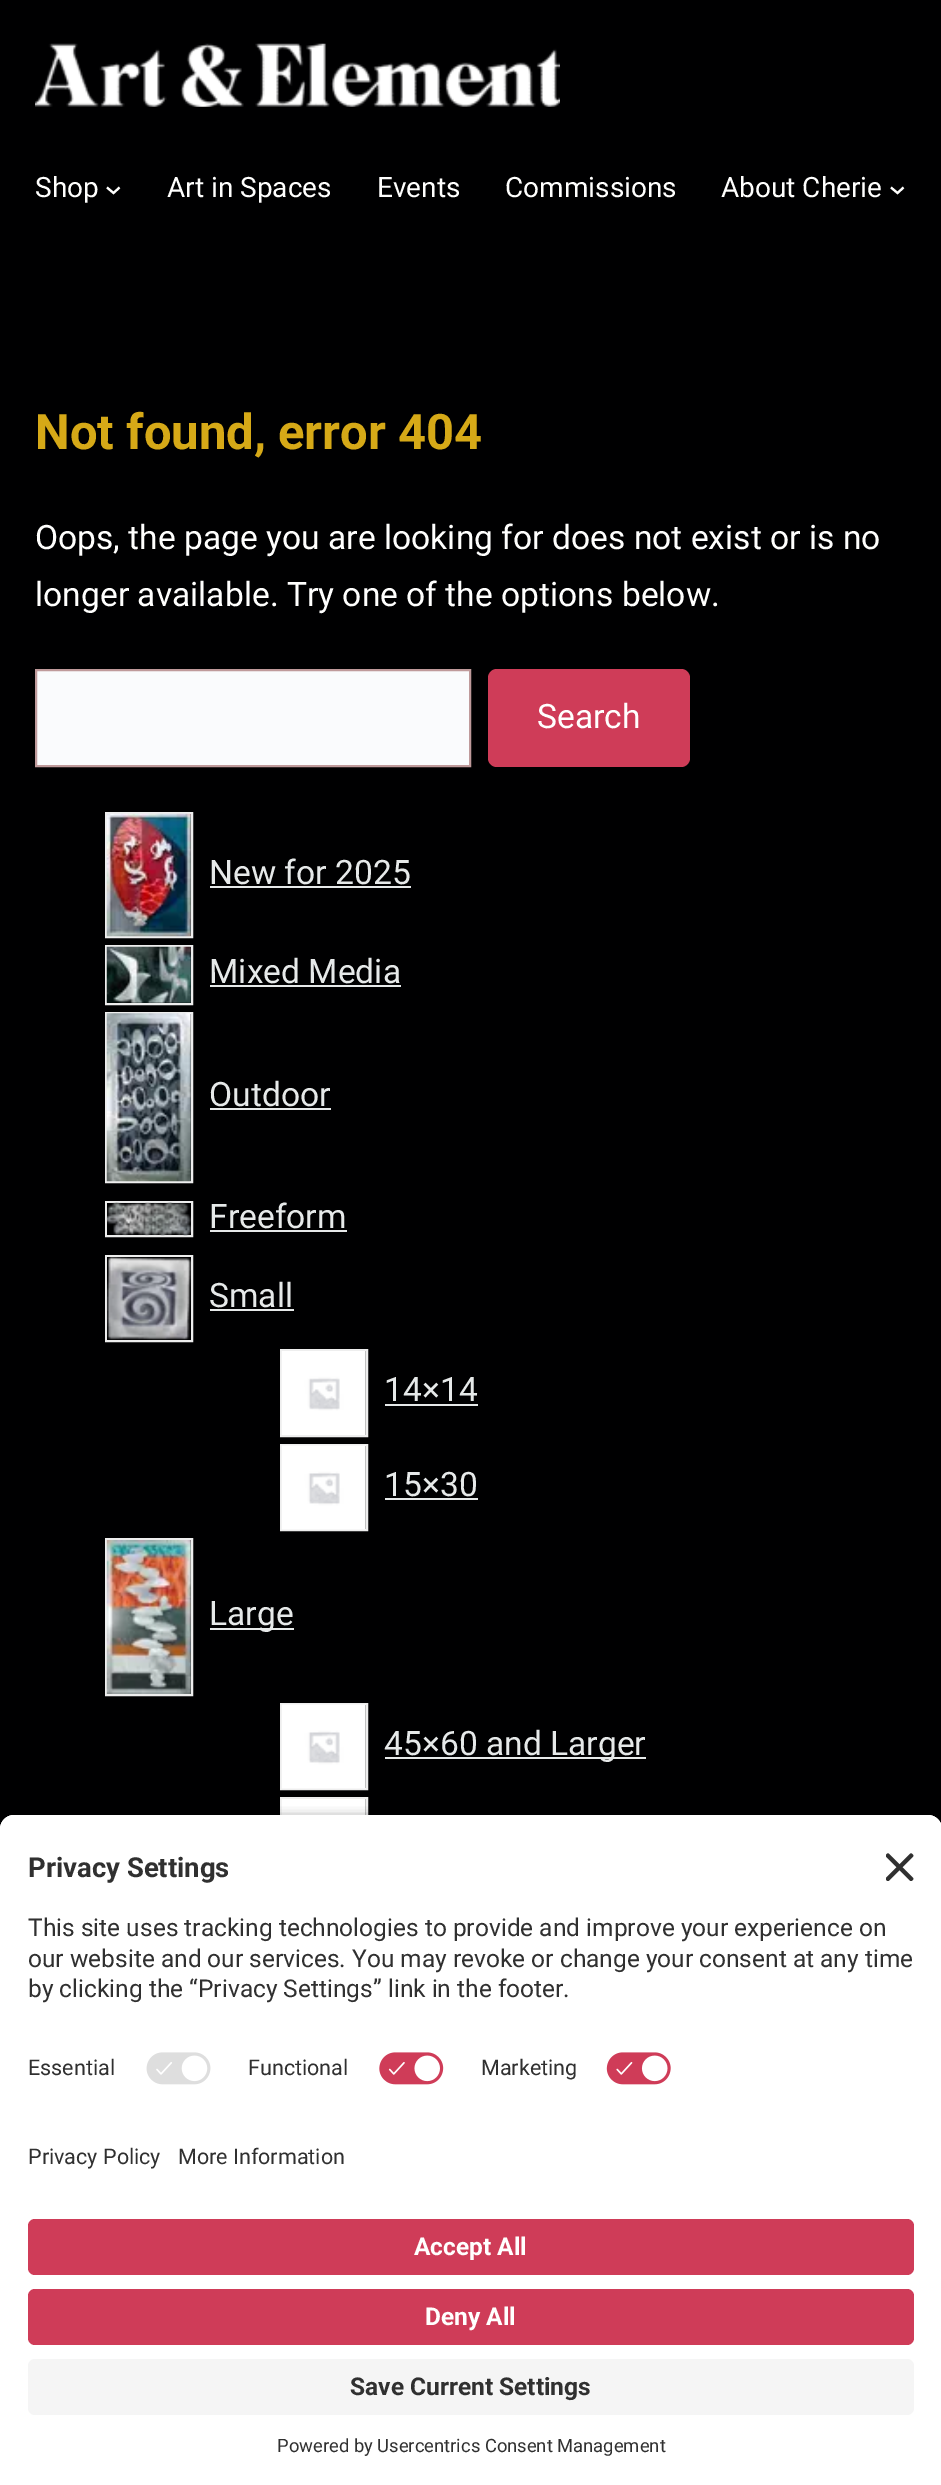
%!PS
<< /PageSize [941 2485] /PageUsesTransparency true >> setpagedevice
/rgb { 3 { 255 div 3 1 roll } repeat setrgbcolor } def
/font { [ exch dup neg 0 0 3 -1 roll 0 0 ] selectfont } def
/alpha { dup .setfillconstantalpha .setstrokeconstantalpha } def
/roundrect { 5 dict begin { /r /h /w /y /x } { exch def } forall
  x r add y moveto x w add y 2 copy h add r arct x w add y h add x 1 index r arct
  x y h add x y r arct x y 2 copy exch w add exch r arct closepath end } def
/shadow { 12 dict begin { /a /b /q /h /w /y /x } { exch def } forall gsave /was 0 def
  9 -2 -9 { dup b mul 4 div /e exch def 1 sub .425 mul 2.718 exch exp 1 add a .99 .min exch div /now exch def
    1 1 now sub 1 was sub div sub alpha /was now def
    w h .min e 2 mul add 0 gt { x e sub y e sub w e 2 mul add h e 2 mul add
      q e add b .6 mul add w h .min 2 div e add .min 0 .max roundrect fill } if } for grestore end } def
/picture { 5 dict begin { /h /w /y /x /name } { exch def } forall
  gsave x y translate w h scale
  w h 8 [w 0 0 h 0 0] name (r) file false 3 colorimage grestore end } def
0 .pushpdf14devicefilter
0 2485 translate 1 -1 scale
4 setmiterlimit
0 0 1 rgb
0 0 941 2485 rectfill
(img/1.rgb) 35 43 525 64 picture
255 255 254 rgb
2.1 setlinewidth
107 187.5 moveto 113.5 193 lineto 119.5 187.5 lineto stroke
891 187.5 moveto 897.5 193 lineto 903.5 187.5 lineto stroke
250 251 253 rgb
36 670 moveto 470 670 lineto 470 766 lineto 36 766 lineto closepath gsave fill grestore
191 154 155 rgb
2 setlinewidth
stroke
207 60 88 rgb
488 669 202 98 9 roundrect fill
238 238 238 rgb
106 813 86 124 rectstroke
(img/2.rgb) 106 813 85 124 picture
230 233 233 rgb
210 886 201 2 rectfill
238 238 238 rgb
106 946 86 58 rectstroke
(img/3.rgb) 106 946 85 57 picture
230 233 233 rgb
210 985 191 2 rectfill
238 238 238 rgb
106 1013 86 169 rectstroke
(img/4.rgb) 106 1013 85 169 picture
230 233 233 rgb
210 1108 121 2 rectfill
238 238 238 rgb
106 1202 86 34 rectstroke
(img/5.rgb) 106 1202 85 34 picture
230 233 233 rgb
210 1230 137 2 rectfill
238 238 238 rgb
106 1256 86 85 rectstroke
(img/6.rgb) 106 1257 85 83 picture
230 233 233 rgb
210 1309 84 2 rectfill
238 238 238 rgb
281 1350 86 86 rectstroke
(img/7.rgb) 281 1351 85 84 picture
230 233 233 rgb
385 1404 93 2 rectfill
238 238 238 rgb
281 1445 86 85 rectstroke
(img/8.rgb) 281 1445 85 85 picture
230 233 233 rgb
385 1498 93 2 rectfill
238 238 238 rgb
106 1539 86 156 rectstroke
(img/9.rgb) 106 1540 85 154 picture
230 233 233 rgb
210 1628 84 2 rectfill
238 238 238 rgb
281 1704 86 85 rectstroke
(img/8.rgb) 281 1704 85 85 picture
230 233 233 rgb
385 1757 261 2 rectfill
238 238 238 rgb
281 1798 86 86 rectstroke
(img/10.rgb) 281 1799 85 16 picture
0 0 0 rgb
0 1820 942 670 14 6 0.8 shadow
255 255 255 rgb
14 1815 moveto 928 1815 lineto 935.5 1815 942 1821.5 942 1829 curveto 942 2118 lineto 0 2118 lineto 0 1829 lineto 0 1821.5 6.5 1815 14 1815 curveto closepath fill
14 1815 moveto 928 1815 lineto 935.5 1815 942 1821.5 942 1829 curveto 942 2041 lineto 0 2041 lineto 0 1829 lineto 0 1821.5 6.5 1815 14 1815 curveto closepath fill
(img/11.rgb) 886 1853 28 28 picture
(img/12.rgb) 146 2052 65 33 picture
(img/13.rgb) 379 2052 65 33 picture
(img/14.rgb) 606 2052 65 33 picture
0 2118 941 367 rectfill
207 60 88 rgb
28 2219 886 56 7 roundrect fill
28 2289 886 56 7 roundrect fill
245 245 245 rgb
28 2359 886 56 7 roundrect fill
/Roboto-Regular 28 font
255 255 254 rgb
[
  [(Shop) 35 197]
  [(Art in Spaces) 167 197]
  [(Events) 377 197]
  [(Commissions) 505 197]
  [(About Cherie) 721 197]
] { aload pop moveto show } forall
/Roboto-Bold 49 font
214 169 23 rgb
35 449 moveto (Not found, error 404) show
/Roboto-Regular 33.6 font
255 255 254 rgb
[
  [(Oops, the page you are looking for does not exist or is no) 35 549]
  [(longer available. Try one of the options below.) 35 606]
  [(Search) 537 728]
] { aload pop moveto show } forall
230 233 233 rgb
[
  [(New for 2025) 209 884]
  [(Mixed Media) 209 983]
  [(Outdoor) 209 1106]
  [(Freeform) 209 1228]
  [(Small) 209 1307]
  [(14×14) 384 1401]
  [(15×30) 384 1496]
  [(Large) 209 1625]
  [(45×60 and Larger) 384 1755]
] { aload pop moveto show } forall
/Roboto-Bold 27.5 font
48 48 48 rgb
28 1877 moveto (Privacy Settings) show
/Roboto-Regular 24.5 font
[
  [(This site uses tracking technologies to provide and improve your experience on) 28 1936]
  [(our website and our services. You may revoke or change your consent at any time) 28 1967]
  [(by clicking the “Privacy Settings” link in the footer.) 28 1997]
] { aload pop moveto show } forall
/Roboto-Regular 21.5 font
[
  [(Essential) 28 2075]
  [(Functional) 248 2075]
  [(Marketing) 481 2075]
  [(Privacy Policy) 28 2164]
  [(More Information) 178 2164]
] { aload pop moveto show } forall
/Roboto-Bold 24.5 font
255 255 254 rgb
414 2255 moveto (Accept All) show
425 2325 moveto (Deny All) show
48 48 48 rgb
350 2395 moveto (Save Current Settings) show
/Roboto-Regular 18.4 font
277 2452 moveto (Powered by Usercentrics Consent Management) show
.poppdf14devicefilter showpage
